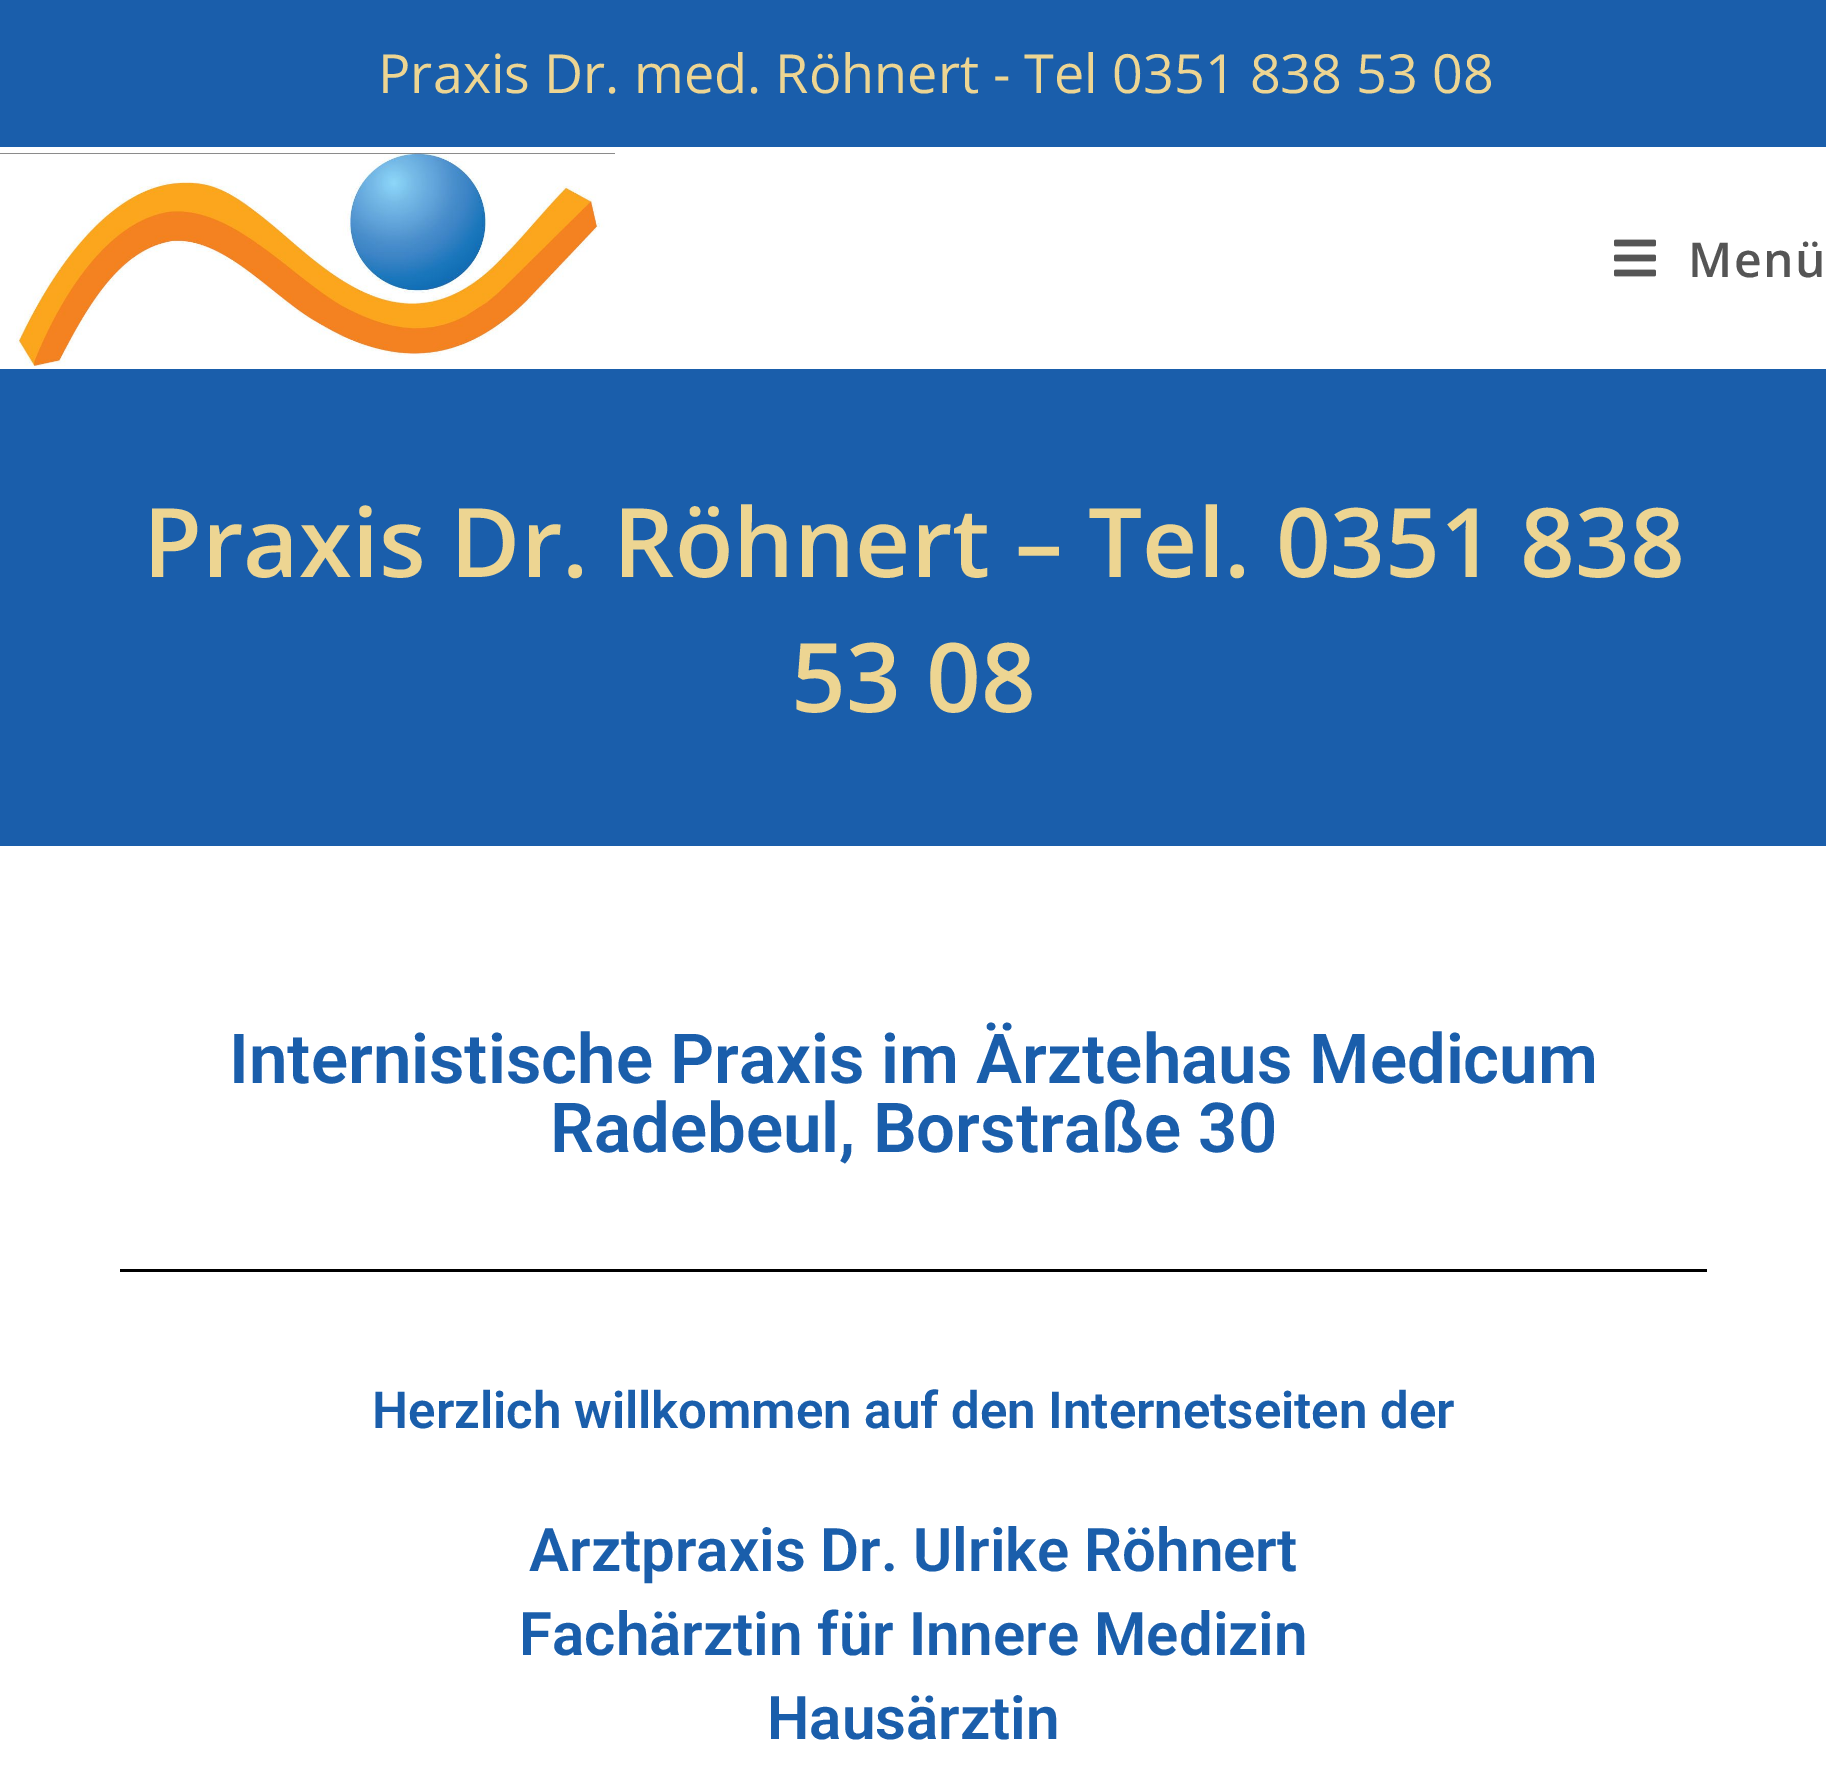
%!PS
<< /PageSize [1826 1765] >> setpagedevice
/rgb { 3 { 255 div 3 1 roll } repeat setrgbcolor } def
/font { [ exch dup neg 0 0 3 -1 roll 0 0 ] selectfont } def
/picture { 5 dict begin { /h /w /y /x /name } { exch def } forall
  gsave x y translate w h scale
  w h 8 [w 0 0 h 0 0] name (r) file false 3 colorimage grestore end } def
0 1765 translate 1 -1 scale
4 setmiterlimit
255 255 255 rgb
0 0 1826 1765 rectfill
26 94 171 rgb
0 0 1826 147 rectfill
(img/1.rgb) 0 153 615 213 picture
(img/2.rgb) 1614 239 42 38 picture
0 369 1826 477 rectfill
0 0 0 rgb
120 1269 1587 3 rectfill
/OpenSans-Regular 54 font
237 213 146 rgb
378 93 moveto (Praxis Dr. med. Röhnert - Tel 0351 838 53 08) show
/OpenSans-SemiBold 48 font
85 85 85 rgb
1688 277 moveto 1.5 0 (Menü) ashow
/OpenSans-SemiBold 96 font
237 213 146 rgb
143 577 moveto (Praxis Dr. Röhnert – Tel. 0351 838) show
791 712 moveto (53 08) show
/Roboto-SemiBold 69 font
26 94 171 rgb
229 1083 moveto (Internistische Praxis im Ärztehaus Medicum) show
550 1152 moveto (Radebeul, Borstraße 30) show
/Roboto-SemiBold 51 font
372 1428 moveto (Herzlich willkommen auf den Internetseiten der) show
/Roboto-SemiBold 60 font
[
  [(Arztpraxis Dr. Ulrike Röhnert) 529 1571]
  [(Fachärztin für Innere Medizin) 519 1655]
  [(Hausärztin) 767 1739]
] { aload pop moveto show } forall
showpage
